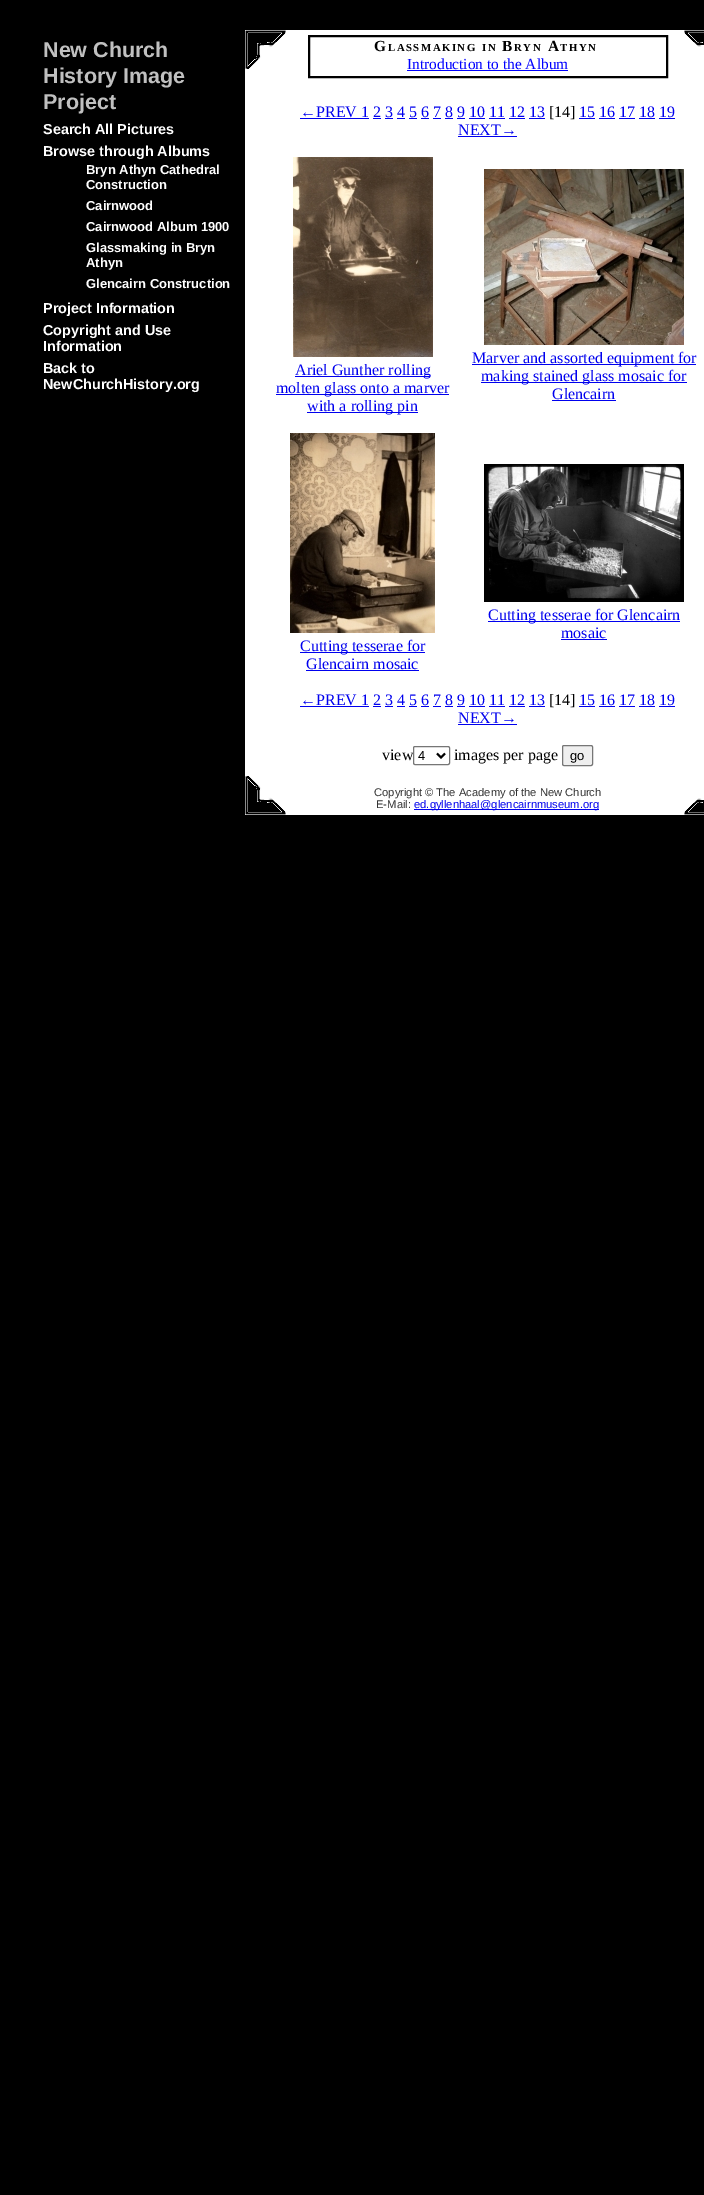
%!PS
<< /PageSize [704 2195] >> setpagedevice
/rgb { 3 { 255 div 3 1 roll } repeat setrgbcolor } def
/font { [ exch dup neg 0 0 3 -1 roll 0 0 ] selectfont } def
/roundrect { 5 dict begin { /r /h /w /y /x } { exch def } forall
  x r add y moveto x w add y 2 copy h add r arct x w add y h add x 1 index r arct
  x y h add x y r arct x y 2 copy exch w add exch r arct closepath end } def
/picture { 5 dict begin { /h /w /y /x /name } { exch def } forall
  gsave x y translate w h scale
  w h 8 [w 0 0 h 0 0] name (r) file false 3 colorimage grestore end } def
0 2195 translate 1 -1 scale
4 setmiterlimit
0 0 0 rgb
0 0 704 2195 rectfill
255 255 255 rgb
245 30 459 785 rectfill
(img/1.rgb) 245 30 41 39 picture
(img/2.rgb) 684 30 20 17 picture
(img/3.rgb) 245 776 41 39 picture
(img/4.rgb) 684 798 20 17 picture
0 0 0 rgb
2 setlinewidth
309 36 358 41 rectstroke
[
  [407 70 161 1 0 0 255]
  [300 118 69 1 0 0 238]
  [579 118 16 1 0 0 238]
  [373 118 8 1 0 0 238]
  [385 118 8 1 0 0 238]
  [397 118 8 1 0 0 238]
  [409 118 8 1 0 0 238]
  [421 118 8 1 0 0 238]
  [433 118 8 1 0 0 238]
  [445 118 8 1 0 0 238]
  [457 118 8 1 0 0 238]
  [469 118 16 1 0 0 238]
  [489 118 16 1 0 0 238]
  [509 118 16 1 0 0 238]
  [529 118 16 1 0 0 238]
  [599 118 16 1 0 0 238]
  [619 118 16 1 0 0 238]
  [639 118 16 1 0 0 238]
  [659 118 16 1 0 0 238]
  [458 136 59 1 0 0 238]
] { aload pop rgb rectfill } forall
(img/5.rgb) 293 157 140 200 picture
[
  [295 376 135 1 0 0 238]
  [276 394 173 1 0 0 238]
  [307 412 111 1 0 0 238]
] { aload pop rgb rectfill } forall
(img/6.rgb) 484 169 200 176 picture
[
  [472 364 224 1 0 0 238]
  [481 382 206 1 0 0 238]
  [552 400 64 1 0 0 238]
] { aload pop rgb rectfill } forall
(img/7.rgb) 484 464 200 138 picture
488 621 192 1 rectfill
561 639 46 1 rectfill
(img/8.rgb) 290 433 145 200 picture
[
  [300 652 125 1 0 0 238]
  [306 670 113 1 0 0 238]
  [300 706 69 1 0 0 238]
  [579 706 16 1 0 0 238]
  [373 706 8 1 0 0 238]
  [385 706 8 1 0 0 238]
  [397 706 8 1 0 0 238]
  [409 706 8 1 0 0 238]
  [421 706 8 1 0 0 238]
  [433 706 8 1 0 0 238]
  [445 706 8 1 0 0 238]
  [457 706 8 1 0 0 238]
  [469 706 16 1 0 0 238]
  [489 706 16 1 0 0 238]
  [509 706 16 1 0 0 238]
  [529 706 16 1 0 0 238]
  [599 706 16 1 0 0 238]
  [619 706 16 1 0 0 238]
  [639 706 16 1 0 0 238]
  [659 706 16 1 0 0 238]
  [458 724 59 1 0 0 238]
] { aload pop rgb rectfill } forall
239 239 239 rgb
562.5 745.5 30 20 1.5 roundrect gsave fill grestore
118 118 118 rgb
1 setlinewidth
stroke
0 0 238 rgb
414 809 185 1 rectfill
/LiberationSans-Bold 21.5 font
192 192 192 rgb
[
  [(New Church) 43 57]
  [(History Image) 43 83]
  [(Project) 43 109]
] { aload pop moveto show } forall
/LiberationSans-Bold 14.4 font
255 255 255 rgb
43 134 moveto (Search All Pictures) show
43 156 moveto (Browse through Albums) show
/LiberationSans-Bold 13 font
[
  [(Bryn Athyn Cathedral) 86 174]
  [(Construction) 86 189]
  [(Cairnwood) 86 210]
  [(Cairnwood Album 1900) 86 231]
  [(Glassmaking in Bryn) 86 252]
  [(Athyn) 86 267]
  [(Glencairn Construction) 86 288]
] { aload pop moveto show } forall
/LiberationSans-Bold 14.4 font
[
  [(Project Information) 43 313]
  [(Copyright and Use) 43 335]
  [(Information) 43 351]
  [(Back to) 43 373]
  [(NewChurchHistory.org) 43 389]
] { aload pop moveto show } forall
/LiberationSerif-Bold 15.4 font
0 0 0 rgb
374 51 moveto 1.5 0 (G) ashow
/LiberationSerif-Bold 10.75 font
388 51 moveto 1.5 0 (LASSMAKING) ashow
482 51 moveto 1.5 0 (IN) ashow
/LiberationSerif-Bold 15.4 font
502 51 moveto 1.5 0 (B) ashow
/LiberationSerif-Bold 10.75 font
514 51 moveto 1.5 0 (RYN) ashow
/LiberationSerif-Bold 15.4 font
548 51 moveto 1.5 0 (A) ashow
/LiberationSerif-Bold 10.75 font
560 51 moveto 1.5 0 (THYN) ashow
/LiberationSerif-Regular 15.4 font
0 0 255 rgb
407 69 moveto (Introduction to the Album) show
/LiberationSerif-Regular 16 font
0 0 238 rgb
300 117 moveto (←PREV 1 2 3 4 5 6 7 8 9 10 11 12 13) show
0 0 0 rgb
549 117 moveto ([14]) show
0 0 238 rgb
[
  [(15 16 17 18 19) 579 117]
  [(NEXT→) 458 135]
  [(Ariel Gunther rolling) 295 375]
  [(molten glass onto a marver) 276 393]
  [(with a rolling pin) 307 411]
  [(Marver and assorted equipment for) 472 363]
  [(making stained glass mosaic for) 481 381]
  [(Glencairn) 552 399]
  [(Cutting tesserae for Glencairn) 488 620]
  [(mosaic) 561 638]
  [(Cutting tesserae for) 300 651]
  [(Glencairn mosaic) 306 669]
  [(←PREV 1 2 3 4 5 6 7 8 9 10 11 12 13) 300 705]
] { aload pop moveto show } forall
0 0 0 rgb
549 705 moveto ([14]) show
0 0 238 rgb
579 705 moveto (15 16 17 18 19) show
458 723 moveto (NEXT→) show
0 0 0 rgb
382 760 moveto (view) show
255 255 255 rgb
413.5 746.5 36 18 1.5 roundrect gsave fill grestore
118 118 118 rgb
stroke
0 0 0 rgb
2 setlinewidth
437 753.5 moveto 441 757.5 lineto 445 753.5 lineto stroke
/LiberationSans-Regular 13 font
418 760 moveto (4) show
/LiberationSerif-Regular 16 font
454 760 moveto (images per page) show
/LiberationSans-Regular 13 font
570 760 moveto (go) show
/LiberationSans-Regular 11.2 font
51 51 51 rgb
374 796 moveto (Copyright © The Academy of the New Church) show
376 808 moveto (E-Mail:) show
0 0 238 rgb
414 808 moveto (ed.gyllenhaal@glencairnmuseum.org) show
showpage
